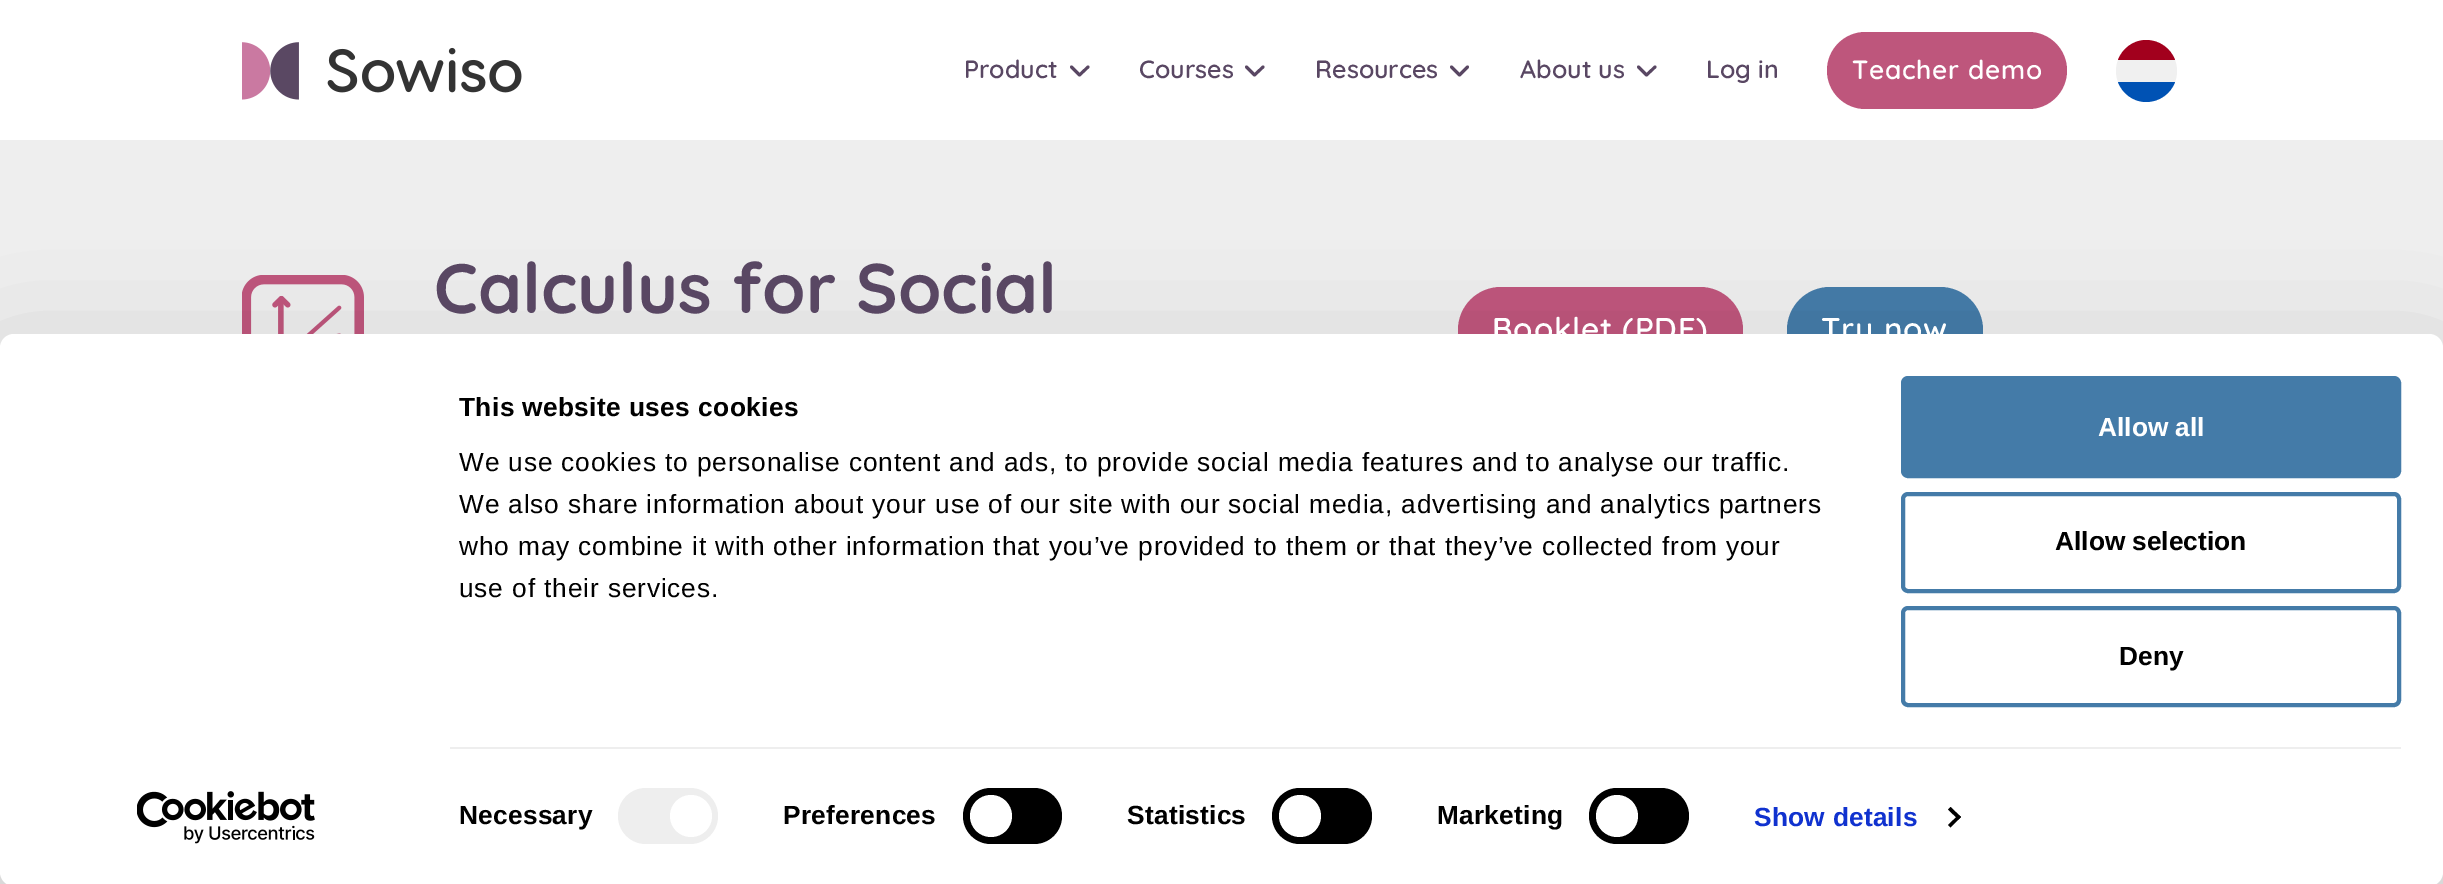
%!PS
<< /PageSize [2443 884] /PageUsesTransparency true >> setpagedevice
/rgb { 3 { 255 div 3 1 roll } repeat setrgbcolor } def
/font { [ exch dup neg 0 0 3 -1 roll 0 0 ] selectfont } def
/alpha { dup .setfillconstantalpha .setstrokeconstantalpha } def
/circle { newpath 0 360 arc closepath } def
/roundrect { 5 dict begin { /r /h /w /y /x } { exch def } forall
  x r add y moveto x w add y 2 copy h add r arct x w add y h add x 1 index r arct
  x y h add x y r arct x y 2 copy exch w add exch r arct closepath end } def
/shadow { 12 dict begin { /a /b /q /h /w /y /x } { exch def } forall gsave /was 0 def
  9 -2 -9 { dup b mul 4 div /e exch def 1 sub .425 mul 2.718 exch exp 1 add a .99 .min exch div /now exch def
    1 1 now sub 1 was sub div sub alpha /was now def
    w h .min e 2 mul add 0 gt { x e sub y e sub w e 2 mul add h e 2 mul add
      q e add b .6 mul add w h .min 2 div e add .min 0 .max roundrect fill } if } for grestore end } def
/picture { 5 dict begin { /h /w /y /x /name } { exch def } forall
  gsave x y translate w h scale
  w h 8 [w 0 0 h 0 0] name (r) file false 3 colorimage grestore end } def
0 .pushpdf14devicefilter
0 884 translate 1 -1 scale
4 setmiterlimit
255 255 255 rgb
0 0 2443 884 rectfill
(img/1.rgb) 242 42 280 58 picture
89 71 99 rgb
2.9 setlinewidth
1 setlinecap
1071.5 67 moveto 1079.5 75 lineto 1088 67 moveto 1079.5 75 lineto stroke
1246.5 67 moveto 1254.5 75 lineto 1263 67 moveto 1254.5 75 lineto stroke
1451.5 67 moveto 1459.5 75 lineto 1467.5 67 moveto 1459.5 75 lineto stroke
1638.5 67 moveto 1646.5 75 lineto 1655 67 moveto 1646.5 75 lineto stroke
190 86 124 rgb
1827 32 240 77 38.5 roundrect fill
240 240 240 rgb
2146.5 71 30.5 circle fill
162 0 29 rgb
2146 40 moveto 2133 40 2122 49 2118 60 curveto 2175 60 lineto 2171 49 2160 40 2146 40 curveto closepath fill
0 82 180 rgb
2146 102 moveto 2160 102 2171 93 2175 82 curveto 2118 82 lineto 2122 93 2133 102 2146 102 curveto closepath fill
238 238 238 rgb
0 140 2443 208 rectfill
(img/2.rgb) 242 275 122 59 picture
190 86 124 rgb
1458 287 285 86 43 roundrect fill
69 123 168 rgb
1787 287 196 86 43 roundrect fill
0 0 0 rgb
0 387 2443 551 14 61 0.3 shadow
255 255 255 rgb
0 334 2443 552 14 roundrect fill
238 238 238 rgb
450 747 1951 2 rectfill
618 788 100 56 28 roundrect fill
255 255 255 rgb
691 816 21 circle fill
0 0 0 rgb
963 788 99 56 28 roundrect fill
255 255 255 rgb
991 816 21 circle fill
0 0 0 rgb
1272 788 100 56 28 roundrect fill
255 255 255 rgb
1300 816 21 circle fill
0 0 0 rgb
1589 788 100 56 28 roundrect fill
255 255 255 rgb
1617 816 21 circle fill
0 0 0 rgb
1950.5 807 moveto 1961 817 lineto 1958.5 819.5 lineto 1948 809.5 lineto closepath fill
1958.5 815 moveto 1961 817 lineto 1950.5 827.5 lineto 1948 825 lineto closepath fill
68 123 168 rgb
1903 378 496 98 5 roundrect gsave fill grestore
4 setlinewidth
0 setlinecap
stroke
1903 494 496 97 5 roundrect stroke
1903 608 496 97 5 roundrect stroke
(img/3.rgb) 137 791 178 53 picture
/Quicksand-SemiBold 25 font
89 71 99 rgb
[
  [(Product) 964 78]
  [(Courses) 1139 78]
  [(Resources) 1315 78]
  [(About us) 1520 78]
  [(Log in) 1706 78]
] { aload pop moveto show } forall
/Quicksand-SemiBold 26.25 font
255 255 255 rgb
1852 79 moveto 0.7 0 (Teacher demo) ashow
/Quicksand-Bold 70 font
89 71 99 rgb
434 313 moveto (Calculus for Social) show
/Quicksand-SemiBold 31.5 font
255 255 255 rgb
1492 340 moveto 0.75 0 (Booklet \(PDF\)) ashow
1821 340 moveto 0.75 0 (Try now) ashow
/LiberationSans-Bold 26.25 font
0 0 0 rgb
459 416 moveto 0.4 0 (This website uses cookies) ashow
/LiberationSans-Regular 26.25 font
459 471 moveto 0.88 0 (We use cookies to personalise content and ads, to provide social media features and to analyse our traffic.) ashow
459 513 moveto 0.88 0 (We also share information about your use of our site with our social media, advertising and analytics partners) ashow
459 555 moveto 0.88 0 (who may combine it with other information that you’ve provided to them or that they’ve collected from your) ashow
459 597 moveto 0.88 0 (use of their services.) ashow
/LiberationSans-Bold 26.25 font
459 824 moveto 0.25 0 (Necessary) ashow
783 824 moveto 0.25 0 (Preferences) ashow
1127 824 moveto 0.25 0 (Statistics) ashow
1437 824 moveto 0.25 0 (Marketing) ashow
16 50 207 rgb
1754 826 moveto 0.25 0 (Show details) ashow
255 255 255 rgb
2098 436 moveto (Allow all) show
0 0 0 rgb
2055 550 moveto (Allow selection) show
2119 665 moveto (Deny) show
.poppdf14devicefilter showpage
